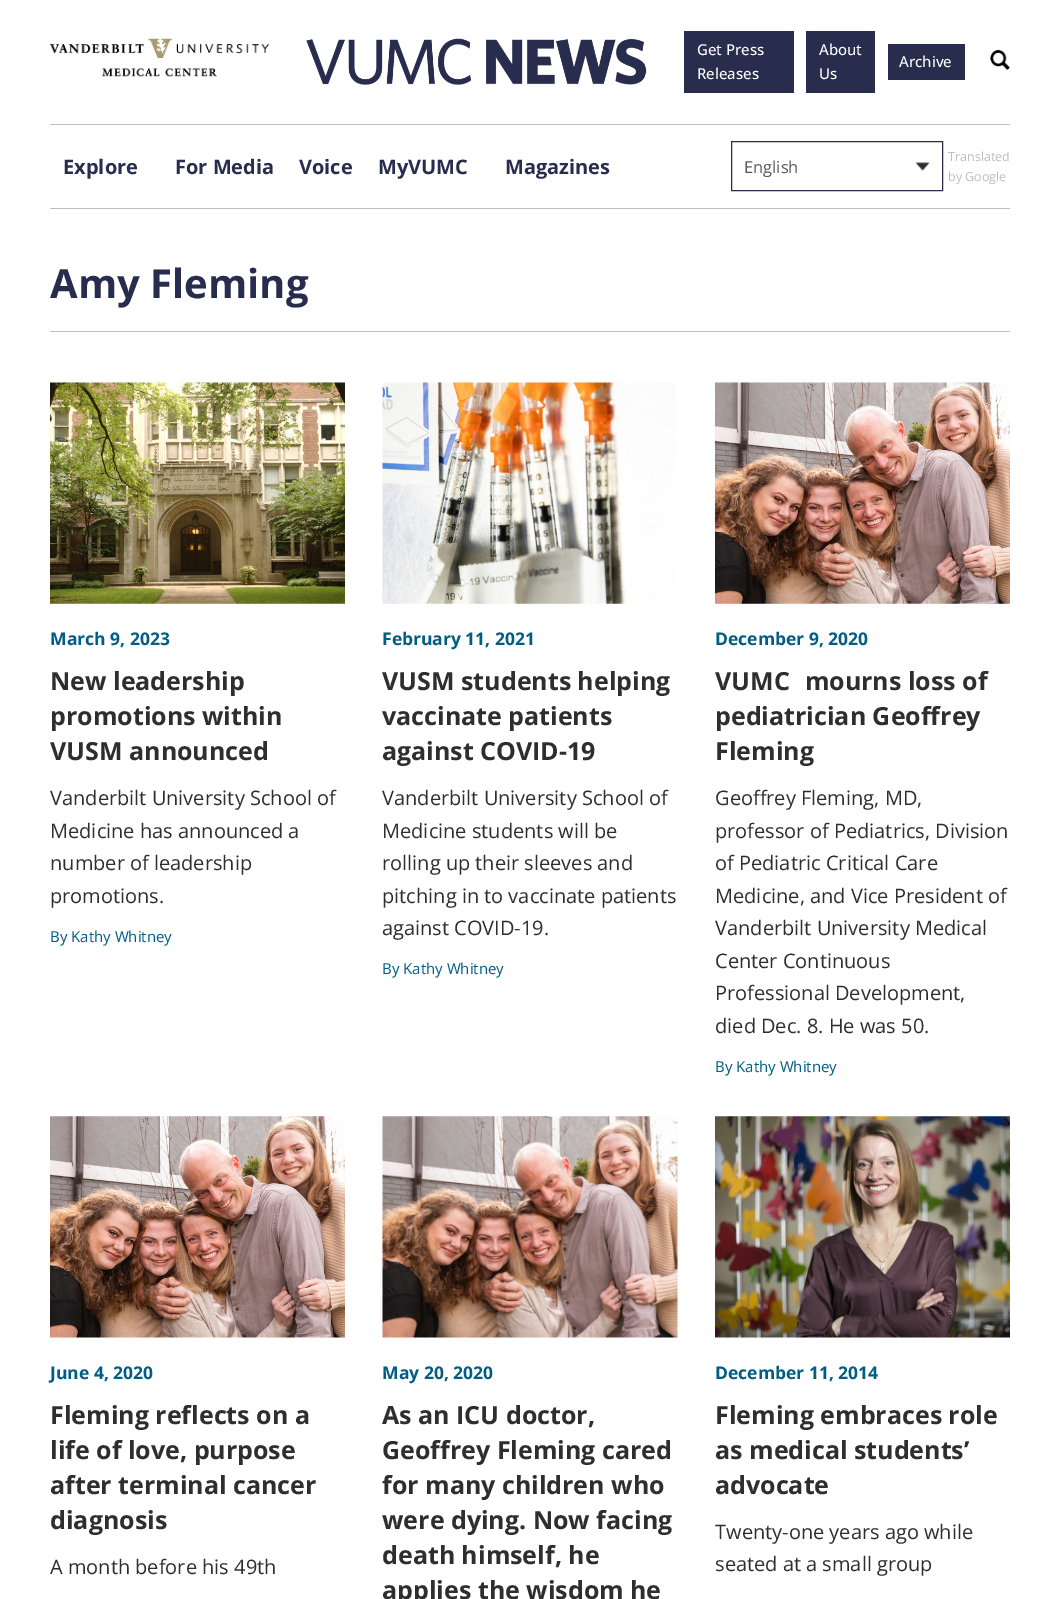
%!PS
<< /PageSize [1060 1599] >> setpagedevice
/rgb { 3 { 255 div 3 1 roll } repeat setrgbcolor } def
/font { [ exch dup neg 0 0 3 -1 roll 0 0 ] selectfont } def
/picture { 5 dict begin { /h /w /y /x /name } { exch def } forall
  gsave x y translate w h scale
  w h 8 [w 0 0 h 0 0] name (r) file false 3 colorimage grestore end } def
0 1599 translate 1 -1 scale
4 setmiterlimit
255 255 255 rgb
0 0 1060 1599 rectfill
191 189 190 rgb
50 124 960 1 rectfill
(img/1.rgb) 50 38 219 39 picture
(img/2.rgb) 306 38 341 47 picture
[
  [684 31 110 62 40 45 78]
  [806 31 69 62 40 45 78]
  [888 44 77 36 40 45 78]
] { aload pop rgb rectfill } forall
(img/3.rgb) 990 50 20 20 picture
191 189 190 rgb
50 208 960 1 rectfill
40 45 78 rgb
731.5 141.5 211 49 rectstroke
(img/4.rgb) 916 162 14 9 picture
191 189 190 rgb
50 331 960 1 rectfill
(img/5.rgb) 50 382 295 222 picture
(img/6.rgb) 382 382 294 222 picture
(img/7.rgb) 715 382 295 222 picture
(img/8.rgb) 50 1116 295 222 picture
(img/9.rgb) 382 1116 296 222 picture
(img/10.rgb) 715 1116 295 222 picture
/OpenSans-Medium 15 font
255 255 255 rgb
[
  [(Get Press) 697 55]
  [(Releases) 697 79]
  [(About) 819 55]
  [(Us) 819 79]
  [(Archive) 899 67]
] { aload pop moveto show } forall
/OpenSans-Bold 20 font
40 45 78 rgb
[
  [(Explore) 63 174]
  [(For Media) 175 174]
  [(Voice) 299 174]
  [(MyVUMC) 378 174]
  [(Magazines) 505 174]
] { aload pop moveto show } forall
/OpenSans-Regular 16.5 font
88 89 91 rgb
744 173 moveto (English) show
/OpenSans-Regular 12.5 font
191 189 190 rgb
948 161 moveto (Translated) show
948 181 moveto (by Google) show
/OpenSans-Bold 40 font
40 45 78 rgb
50 298 moveto (Amy Fleming) show
/OpenSans-Bold 17.5 font
0 93 131 rgb
50 645 moveto (March 9, 2023) show
/OpenSans-Bold 25 font
46 46 47 rgb
[
  [(New leadership) 50 690]
  [(promotions within) 50 725]
  [(VUSM announced) 50 760]
] { aload pop moveto show } forall
/OpenSans-Regular 20 font
[
  [(Vanderbilt University School of) 50 805]
  [(Medicine has announced a) 50 838]
  [(number of leadership) 50 870]
  [(promotions.) 50 903]
] { aload pop moveto show } forall
/OpenSans-Regular 15 font
0 93 131 rgb
50 942 moveto (By Kathy Whitney) show
/OpenSans-Bold 17.5 font
382 645 moveto (February 11, 2021) show
/OpenSans-Bold 25 font
46 46 47 rgb
[
  [(VUSM students helping) 382 690]
  [(vaccinate patients) 382 725]
  [(against COVID-19) 382 760]
] { aload pop moveto show } forall
/OpenSans-Regular 20 font
[
  [(Vanderbilt University School of) 382 805]
  [(Medicine students will be) 382 838]
  [(rolling up their sleeves and) 382 870]
  [(pitching in to vaccinate patients) 382 903]
  [(against COVID-19.) 382 935]
] { aload pop moveto show } forall
/OpenSans-Regular 15 font
0 93 131 rgb
382 974 moveto (By Kathy Whitney) show
/OpenSans-Bold 17.5 font
715 645 moveto (December 9, 2020) show
/OpenSans-Bold 25 font
46 46 47 rgb
[
  [(VUMC mourns loss of) 715 690]
  [(pediatrician Geoffrey) 715 725]
  [(Fleming) 715 760]
] { aload pop moveto show } forall
/OpenSans-Regular 20 font
[
  [(Geoffrey Fleming, MD,) 715 805]
  [(professor of Pediatrics, Division) 715 838]
  [(of Pediatric Critical Care) 715 870]
  [(Medicine, and Vice President of) 715 903]
  [(Vanderbilt University Medical) 715 935]
  [(Center Continuous) 715 968]
  [(Professional Development,) 715 1000]
  [(died Dec. 8. He was 50.) 715 1033]
] { aload pop moveto show } forall
/OpenSans-Regular 15 font
0 93 131 rgb
715 1072 moveto (By Kathy Whitney) show
/OpenSans-Bold 17.5 font
50 1379 moveto (June 4, 2020) show
/OpenSans-Bold 25 font
46 46 47 rgb
[
  [(Fleming reflects on a) 50 1424]
  [(life of love, purpose) 50 1459]
  [(after terminal cancer) 50 1494]
  [(diagnosis) 50 1529]
] { aload pop moveto show } forall
/OpenSans-Regular 20 font
50 1574 moveto (A month before his 49th) show
/OpenSans-Bold 17.5 font
0 93 131 rgb
382 1379 moveto (May 20, 2020) show
/OpenSans-Bold 25 font
46 46 47 rgb
[
  [(As an ICU doctor,) 382 1424]
  [(Geoffrey Fleming cared) 382 1459]
  [(for many children who) 382 1494]
  [(were dying. Now facing) 382 1529]
  [(death himself, he) 382 1564]
  [(applies the wisdom he) 382 1599]
] { aload pop moveto show } forall
/OpenSans-Bold 17.5 font
0 93 131 rgb
715 1379 moveto (December 11, 2014) show
/OpenSans-Bold 25 font
46 46 47 rgb
[
  [(Fleming embraces role) 715 1424]
  [(as medical students’) 715 1459]
  [(advocate) 715 1494]
] { aload pop moveto show } forall
/OpenSans-Regular 20 font
715 1539 moveto (Twenty-one years ago while) show
715 1571 moveto (seated at a small group) show
showpage
